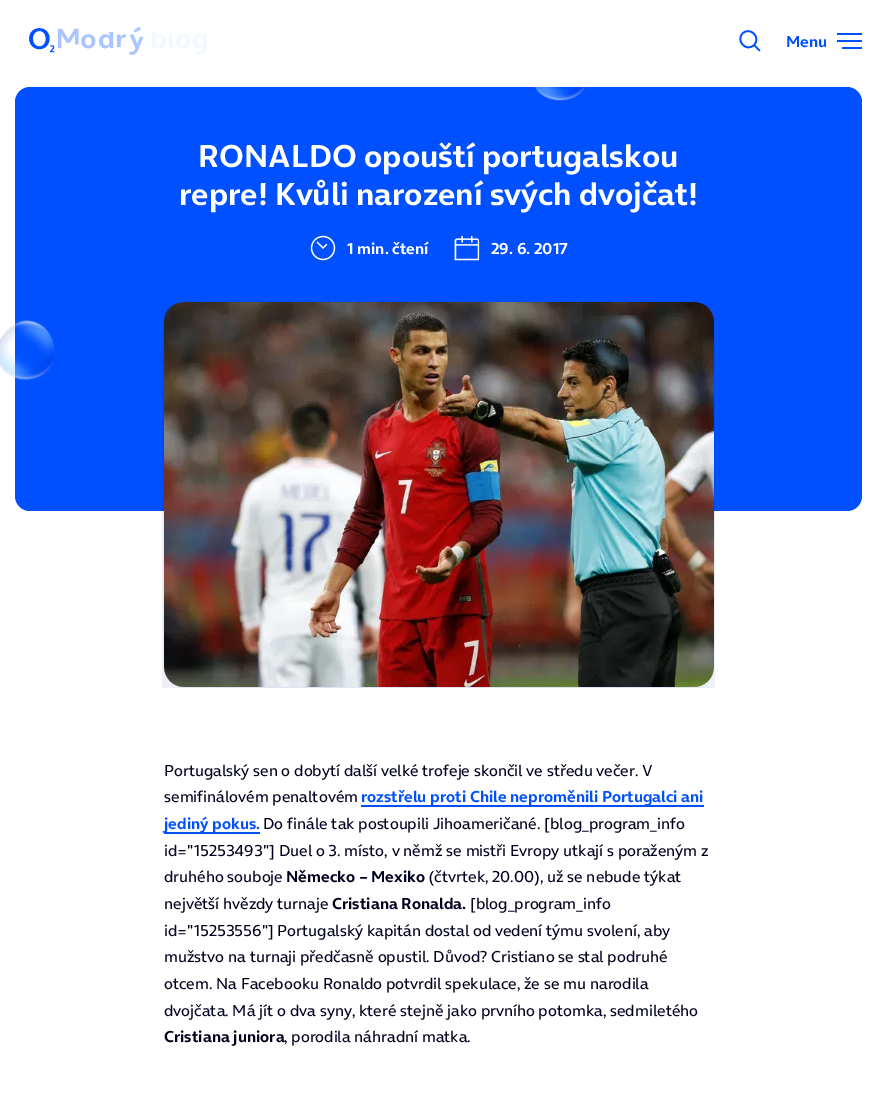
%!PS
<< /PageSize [877 1117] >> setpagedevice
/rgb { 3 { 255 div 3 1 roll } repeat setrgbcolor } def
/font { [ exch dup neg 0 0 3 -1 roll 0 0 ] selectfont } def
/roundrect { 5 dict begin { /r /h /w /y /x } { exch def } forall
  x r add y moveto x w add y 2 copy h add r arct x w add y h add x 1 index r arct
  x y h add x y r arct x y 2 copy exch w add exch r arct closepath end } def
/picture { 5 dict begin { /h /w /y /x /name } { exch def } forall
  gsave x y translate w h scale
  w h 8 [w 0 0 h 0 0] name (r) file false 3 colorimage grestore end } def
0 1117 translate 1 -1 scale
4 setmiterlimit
255 255 255 rgb
0 0 877 1117 rectfill
(img/1.rgb) 29 27 178 28 picture
0 80 255 rgb
1.7 setlinewidth
1 setlinecap
1 setlinejoin
759.5 50.5 moveto 754.5 45.5 lineto 754 45 moveto 746.5 52.5 735.5 41 742.5 33.5 curveto 750 26 761.5 37.5 754 45 curveto closepath stroke
[
  [837 33 25 2 0 80 255]
  [837 40 25 2 0 80 255]
  [842 47 20 2 0 80 255]
] { aload pop rgb rectfill } forall
15 87 847 424 15 roundrect fill
(img/2.rgb) 534 87 52 14 picture
(img/6.rgb) 162 302 553 386 picture
(img/3.rgb) 592 315 53 56 picture
(img/4.rgb) 310 235 26 26 picture
(img/5.rgb) 454 235 26 26 picture
(img/7.rgb) 0 320 55 60 picture
361 805 343 2 rectfill
164 832 96 2 rectfill
/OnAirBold-Bold 16 font
786 47 moveto (Menu) show
/OnAirBold-Bold 32 font
255 255 255 rgb
198 167 moveto (RONALDO opouští portugalskou) show
179 205 moveto (repre! Kvůli narození svých dvojčat!) show
/OnAirBold-Bold 16 font
347 254 moveto (1 min. čtení) show
491 254 moveto (29. 6. 2017) show
/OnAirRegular-Regular 16 font
0 0 30 rgb
164 776 moveto (Portugalský sen o dobytí další velké trofeje skončil ve středu večer. V) show
164 802 moveto (semifinálovém penaltovém) show
/OnAirBold-Bold 16 font
0 80 255 rgb
361 802 moveto (rozstřelu proti Chile neproměnili Portugalci ani) show
164 829 moveto (jediný pokus.) show
/OnAirRegular-Regular 16 font
0 0 30 rgb
[
  [(Do finále tak postoupili Jihoameričané. [blog_program_info) 263 829]
  [(id="15253493"] Duel o 3. místo, v němž se mistři Evropy utkají s poraženým z) 164 856]
  [(druhého souboje) 164 882]
] { aload pop moveto show } forall
/OnAirBold-Bold 16 font
286 882 moveto (Německo – Mexiko) show
/OnAirRegular-Regular 16 font
429 882 moveto (\(čtvrtek, 20.00\), už se nebude týkat) show
164 909 moveto (největší hvězdy turnaje) show
/OnAirBold-Bold 16 font
332 909 moveto (Cristiana Ronalda.) show
/OnAirRegular-Regular 16 font
[
  [([blog_program_info) 470 909]
  [(id="15253556"] Portugalský kapitán dostal od vedení týmu svolení, aby) 164 936]
  [(mužstvo na turnaji předčasně opustil. Důvod? Cristiano se stal podruhé) 164 962]
  [(otcem. Na Facebooku Ronaldo potvrdil spekulace, že se mu narodila) 164 989]
  [(dvojčata. Má jít o dva syny, které stejně jako prvního potomka, sedmiletého) 164 1016]
] { aload pop moveto show } forall
/OnAirBold-Bold 16 font
164 1042 moveto (Cristiana juniora) show
/OnAirRegular-Regular 16 font
284 1042 moveto (, porodila náhradní matka.) show
showpage
